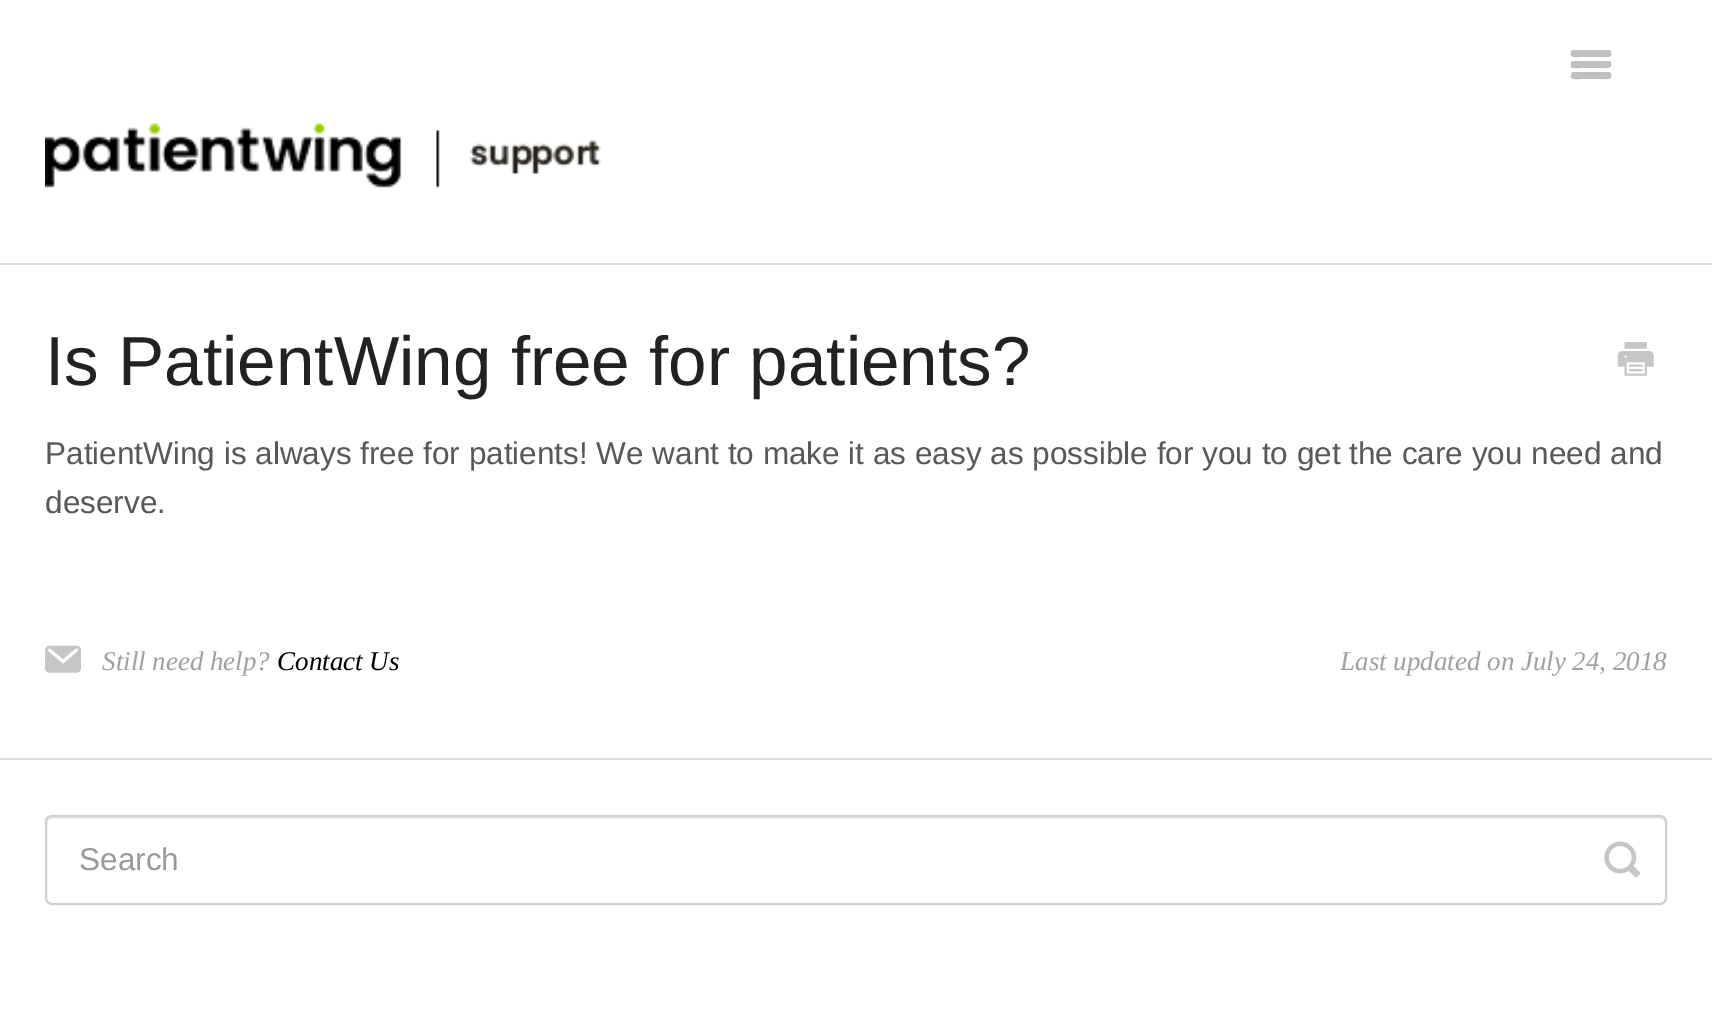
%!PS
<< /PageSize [1712 1010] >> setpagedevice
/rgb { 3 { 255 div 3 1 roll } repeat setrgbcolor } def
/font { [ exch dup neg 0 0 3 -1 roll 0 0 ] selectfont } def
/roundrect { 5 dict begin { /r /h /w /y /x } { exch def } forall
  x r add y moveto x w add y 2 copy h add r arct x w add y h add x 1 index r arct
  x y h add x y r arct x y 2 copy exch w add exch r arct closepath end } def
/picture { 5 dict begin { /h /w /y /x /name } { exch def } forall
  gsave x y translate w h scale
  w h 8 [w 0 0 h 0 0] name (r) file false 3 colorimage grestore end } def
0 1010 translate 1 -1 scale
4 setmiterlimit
255 255 255 rgb
0 0 1712 1010 rectfill
191 191 191 rgb
1571 53 moveto 1569 58 1578 57 1579 57 curveto 1603 57 lineto 1603 57 1614 58 1611 53 curveto 1609 54 lineto 1605 54 1573 55 1571 53 curveto closepath fill
192 192 192 rgb
1571 50 40 5 2.5 roundrect fill
191 191 191 rgb
1571 65 moveto 1569 69 1578 68 1579 68 curveto 1603 68 lineto 1603 68 1613 69 1611 64 curveto 1609 65 lineto 1605 66 1572 66 1571 65 curveto closepath fill
192 192 192 rgb
1571 61 40 5 2.5 roundrect fill
191 191 191 rgb
1571 76 moveto 1570 80 1578 79 1579 79 curveto 1603 79 lineto 1604 79 1613 80 1611 75 curveto 1609 76 lineto 1605 77 1572 77 1571 76 curveto closepath fill
192 192 192 rgb
1571 72 40 5 2.5 roundrect fill
(img/1.rgb) 45 123 557 65 picture
222 222 222 rgb
0 263 1712 2 rectfill
0 758 1712 2 rectfill
(img/2.rgb) 1617 342 37 34 picture
(img/3.rgb) 45 645 36 28 picture
236 236 236 rgb
52 819 moveto 1660 819 lineto 1663 819 1665 821 1665 824 curveto 1665 821 1664 817 1660 817 curveto 52 817 lineto 48 817 47 821 47 824 curveto 47 821 49 819 52 819 curveto closepath fill
208 208 208 rgb
2 setlinewidth
46 816 1620 88 6 roundrect stroke
(img/4.rgb) 1604 841 37 37 picture
/LiberationSans-Regular 69.25 font
34 34 34 rgb
45 385 moveto (Is PatientWing free for patients?) show
/LiberationSans-Regular 31.5 font
88 88 88 rgb
45 464 moveto (PatientWing is always free for patients! We want to make it as easy as possible for you to get the care you need and) show
45 513 moveto (deserve.) show
/LiberationSerif-Italic 27 font
160 160 160 rgb
102 670 moveto (Still need help?) show
0 0 0 rgb
277 670 moveto (Contact Us) show
160 160 160 rgb
1340 670 moveto (Last updated on July 24, 2018) show
/LiberationSans-Regular 31.5 font
153 153 153 rgb
79 870 moveto (Search) show
showpage
